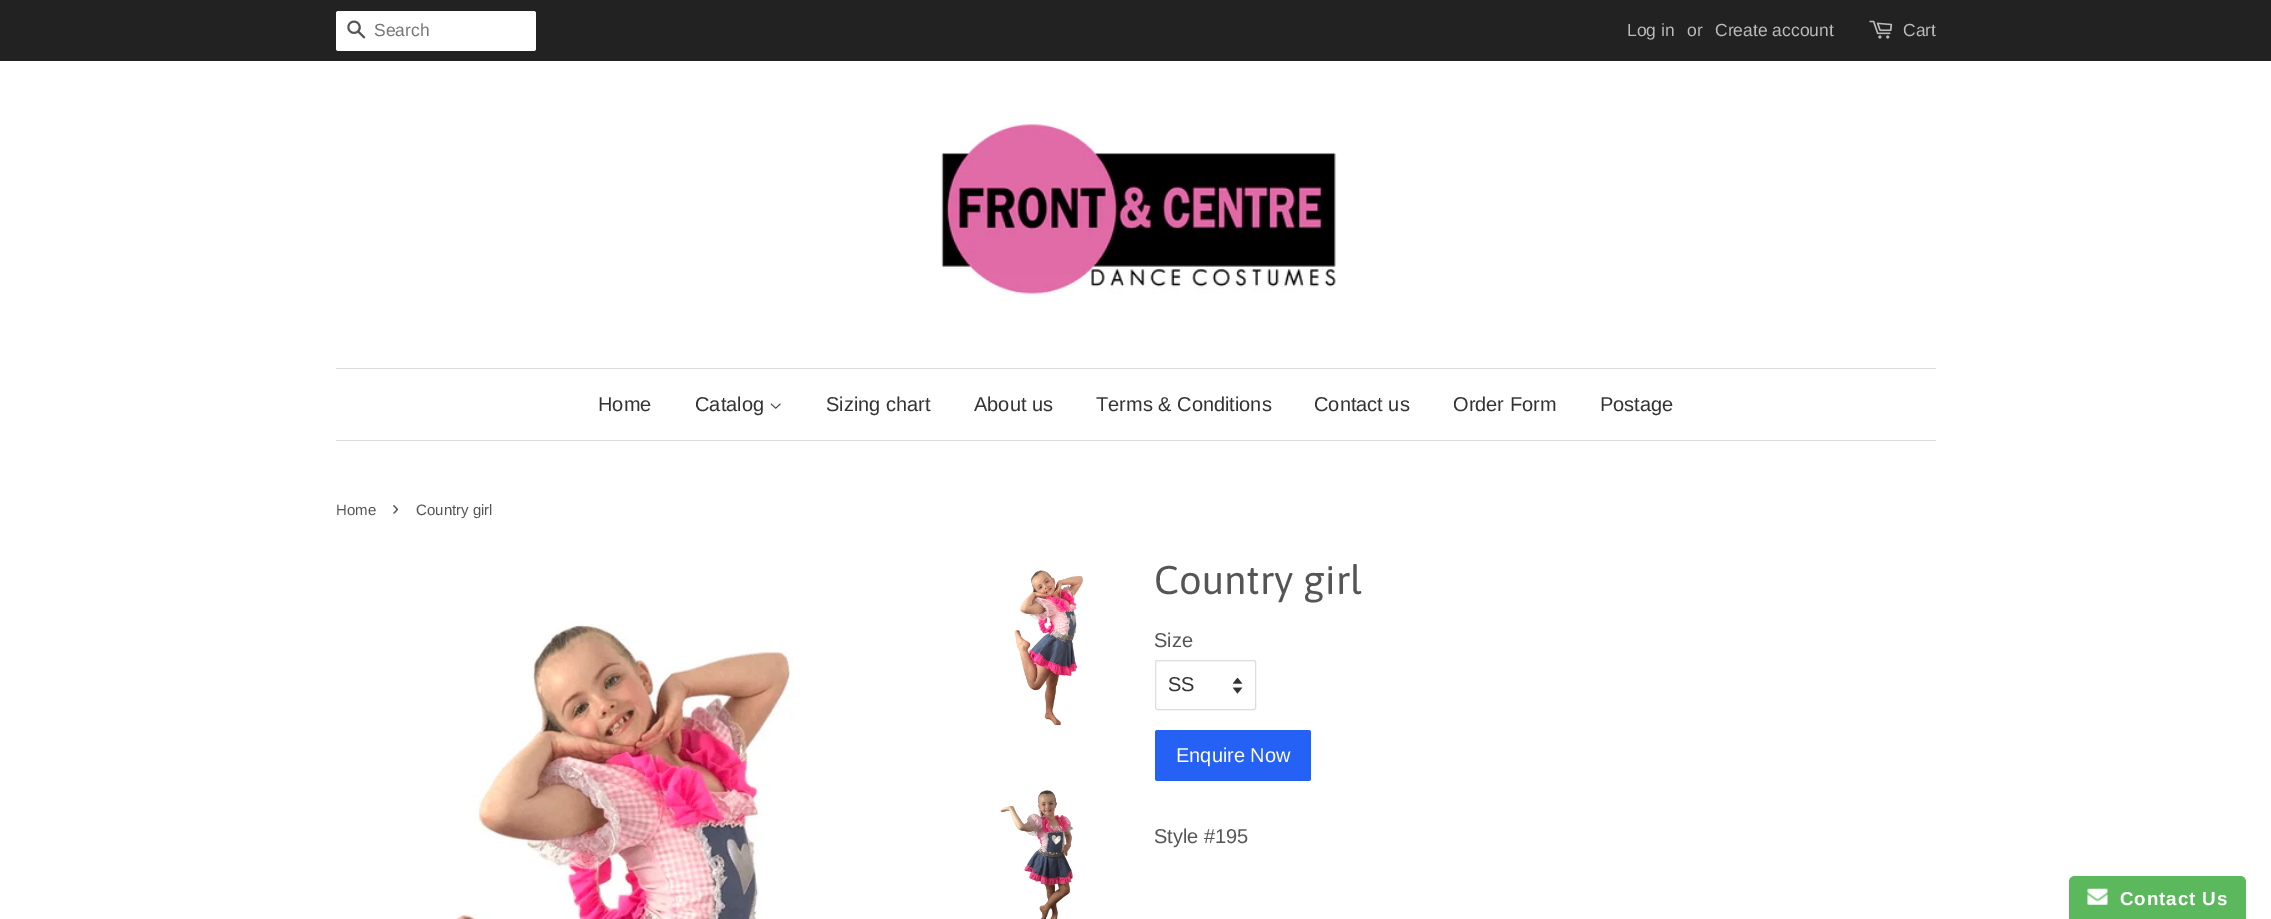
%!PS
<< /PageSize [2271 919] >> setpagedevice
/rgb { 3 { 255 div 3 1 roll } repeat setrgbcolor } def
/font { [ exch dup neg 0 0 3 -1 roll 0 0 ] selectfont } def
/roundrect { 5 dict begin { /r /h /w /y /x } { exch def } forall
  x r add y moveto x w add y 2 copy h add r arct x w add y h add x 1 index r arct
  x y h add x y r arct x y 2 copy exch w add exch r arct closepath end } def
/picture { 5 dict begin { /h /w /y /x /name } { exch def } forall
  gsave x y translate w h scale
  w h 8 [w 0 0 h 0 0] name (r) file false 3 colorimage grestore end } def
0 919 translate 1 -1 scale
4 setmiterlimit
255 255 255 rgb
0 0 2271 919 rectfill
34 34 34 rgb
0 0 2271 61 rectfill
255 255 255 rgb
336 11 200 40 2.5 roundrect fill
(img/1.rgb) 347 20 19 19 picture
(img/2.rgb) 1869 20 24 19 picture
(img/3.rgb) 941 121 397 174 picture
221 221 221 rgb
336 368 1600 1 rectfill
336 440 1600 1 rectfill
(img/4.rgb) 770 403 11 6 picture
(img/5.rgb) 456 620 338 299 picture
(img/6.rgb) 1014 570 70 155 picture
(img/7.rgb) 1000 790 74 129 picture
(img/8.rgb) 1233 678 10 16 picture
1155.5 660.5 100 49 2 roundrect stroke
38 97 246 rgb
1155 730 156 51 2.5 roundrect fill
92 184 92 rgb
2075 876 moveto 2240 876 lineto 2243.5 876 2246 878.5 2246 882 curveto 2246 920 lineto 2069 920 lineto 2069 882 lineto 2069 878.5 2071.5 876 2075 876 curveto closepath fill
(img/9.rgb) 2087 888 21 17 picture
/LiberationSans-Regular 17.5 font
117 117 117 rgb
374 36 moveto (Search) show
187 187 187 rgb
[
  [(Log in) 1627 36]
  [(or) 1687 36]
  [(Create account) 1715 36]
  [(Cart) 1903 36]
] { aload pop moveto show } forall
/LiberationSans-Regular 20 font
51 51 51 rgb
[
  [(Home) 598 411]
  [(Catalog) 695 411]
  [(Sizing chart) 826 411]
  [(About us) 974 411]
  [(Terms & Conditions) 1096 411]
  [(Contact us) 1314 411]
  [(Order Form) 1453 411]
  [(Postage) 1600 411]
] { aload pop moveto show } forall
/LiberationSans-Regular 15 font
85 85 85 rgb
336 515 moveto (Home) show
/LiberationSans-Regular 21 font
392 515 moveto (›) show
/LiberationSans-Regular 15 font
416 515 moveto (Country girl) show
/Asap-Regular 40 font
1154 594 moveto (Country girl) show
/LiberationSans-Regular 20 font
1154 647 moveto (Size) show
51 51 51 rgb
1168 691 moveto (SS) show
255 255 255 rgb
1176 762 moveto (Enquire Now) show
85 85 85 rgb
1154 843 moveto (Style #195) show
/LiberationSans-Bold 18.75 font
255 255 255 rgb
2120 905 moveto 0.9 0 (Contact Us) ashow
showpage
